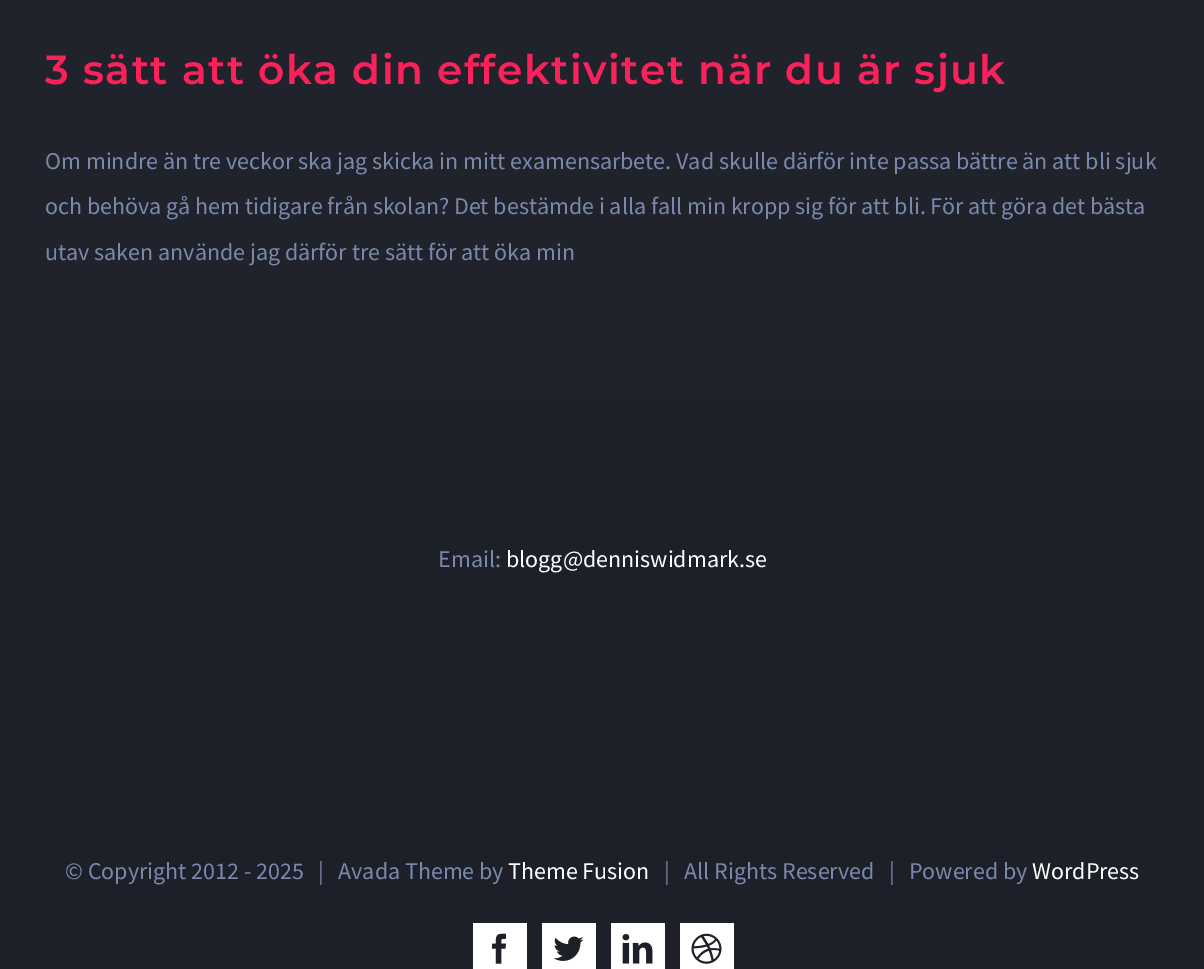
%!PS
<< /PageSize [1204 969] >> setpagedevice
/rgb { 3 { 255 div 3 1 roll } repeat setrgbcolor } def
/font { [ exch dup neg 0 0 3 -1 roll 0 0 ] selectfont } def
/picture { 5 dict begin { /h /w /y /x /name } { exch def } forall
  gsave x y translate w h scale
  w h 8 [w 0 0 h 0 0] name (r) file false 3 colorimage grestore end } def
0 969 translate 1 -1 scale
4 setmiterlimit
32 35 44 rgb
0 0 1204 969 rectfill
29 32 40 rgb
0 401 1204 568 rectfill
255 255 255 rgb
473 923 54 46 rectfill
(img/1.rgb) 492 933 14 31 picture
542 923 54 46 rectfill
(img/2.rgb) 553 936 31 25 picture
611 923 54 46 rectfill
(img/3.rgb) 622 934 31 30 picture
680 923 54 46 rectfill
(img/4.rgb) 691 933 31 31 picture
/Montserrat-SemiBold 40.7 font
250 34 91 rgb
45 84 moveto 1.5 0 (3 sätt att öka din effektivitet när du är sjuk) ashow
/SourceSansPro-Regular 24 font
122 137 171 rgb
[
  [(Om mindre än tre veckor ska jag skicka in mitt examensarbete. Vad skulle därför inte passa bättre än att bli sjuk) 45 169]
  [(och behöva gå hem tidigare från skolan? Det bestämde i alla fall min kropp sig för att bli. För att göra det bästa) 45 214]
  [(utav saken använde jag därför tre sätt för att öka min) 45 260]
  [(Email:) 438 567]
] { aload pop moveto show } forall
255 255 255 rgb
506 567 moveto (blogg@denniswidmark.se) show
122 137 171 rgb
65 879 moveto (© Copyright 2012 - 2025   |   Avada Theme by) show
255 255 255 rgb
508 879 moveto (Theme Fusion) show
122 137 171 rgb
664 879 moveto (|   All Rights Reserved   |   Powered by) show
255 255 255 rgb
1032 879 moveto (WordPress) show
showpage
